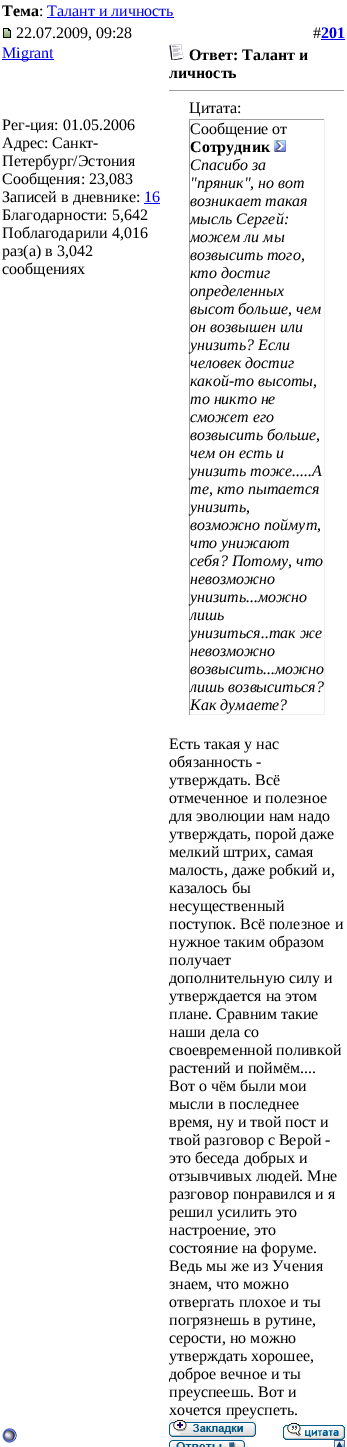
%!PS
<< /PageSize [347 1447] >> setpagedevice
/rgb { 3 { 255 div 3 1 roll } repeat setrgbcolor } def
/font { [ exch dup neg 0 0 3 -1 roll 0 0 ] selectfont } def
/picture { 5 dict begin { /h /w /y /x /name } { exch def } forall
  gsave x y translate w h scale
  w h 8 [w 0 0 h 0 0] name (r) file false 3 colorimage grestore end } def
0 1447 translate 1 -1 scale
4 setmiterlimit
255 255 255 rgb
0 0 347 1447 rectfill
0 0 238 rgb
47 17 127 1 rectfill
(img/1.rgb) 3 28 8 10 picture
[
  [321 39 24 1 0 0 238]
  [2 59 52 1 0 0 238]
  [144 203 16 1 0 0 238]
] { aload pop rgb rectfill } forall
(img/2.rgb) 169 44 15 16 picture
[
  [169 90 176 1 159 159 159]
  [344 90 1 1 238 238 238]
  [189 119 136 1 159 159 159]
  [324 119 1 596 238 238 238]
  [189 714 136 1 238 238 238]
  [189 119 1 596 159 159 159]
] { aload pop rgb rectfill } forall
(img/3.rgb) 274 140 12 12 picture
(img/4.rgb) 2 1428 15 15 picture
(img/5.rgb) 169 1419 87 18 picture
(img/6.rgb) 169 1437 76 10 picture
(img/7.rgb) 283 1423 62 17 picture
(img/8.rgb) 334 1440 11 7 picture
/LiberationSerif-Bold 16 font
0 0 0 rgb
2 16 moveto (Тема) show
/LiberationSerif-Regular 16 font
39 16 moveto (:) show
0 0 238 rgb
47 16 moveto (Талант и личность) show
0 0 0 rgb
16 38 moveto (22.07.2009, 09:28) show
313 38 moveto (#) show
/LiberationSerif-Bold 16 font
0 0 238 rgb
321 38 moveto (201) show
/LiberationSerif-Regular 16 font
2 58 moveto (Migrant) show
0 0 0 rgb
[
  [(Рег-ция: 01.05.2006) 2 130]
  [(Адрес: Санкт-) 2 148]
  [(Петербург/Эстония) 2 166]
  [(Сообщения: 23,083) 2 184]
  [(Записей в дневнике:) 2 202]
] { aload pop moveto show } forall
0 0 238 rgb
144 202 moveto (16) show
0 0 0 rgb
[
  [(Благодарности: 5,642) 2 220]
  [(Поблагодарили 4,016) 2 238]
  [(раз\(а\) в 3,042) 2 256]
  [(сообщениях) 2 274]
] { aload pop moveto show } forall
/LiberationSerif-Bold 16 font
189 60 moveto (Ответ: Талант и) show
169 78 moveto (личность) show
/LiberationSerif-Regular 16 font
189 113 moveto (Цитата:) show
190 134 moveto (Сообщение от) show
/LiberationSerif-Bold 16 font
190 152 moveto (Сотрудник) show
/LiberationSerif-Italic 16 font
[
  [(Спасибо за) 190 170]
  [("пряник", но вот) 190 188]
  [(возникает такая) 190 206]
  [(мысль Сергей:) 190 224]
  [(можем ли мы) 190 242]
  [(возвысить того,) 190 260]
  [(кто достиг) 190 278]
  [(определенных) 190 296]
  [(высот больше, чем) 190 314]
  [(он возвышен или) 190 332]
  [(унизить? Если) 190 350]
  [(человек достиг) 190 368]
  [(какой-то высоты,) 190 386]
  [(то никто не) 190 404]
  [(сможет его) 190 422]
  [(возвысить больше,) 190 440]
  [(чем он есть и) 190 458]
  [(унизить тоже.....А) 190 476]
  [(те, кто пытается) 190 494]
  [(унизить,) 190 512]
  [(возможно поймут,) 190 530]
  [(что унижают) 190 548]
  [(себя? Потому, что) 190 566]
  [(невозможно) 190 584]
  [(унизить...можно) 190 602]
  [(лишь) 190 620]
  [(унизиться..так же) 190 638]
  [(невозможно) 190 656]
  [(возвысить...можно) 190 674]
  [(лишь возвыситься?) 190 692]
  [(Как думаете?) 190 710]
] { aload pop moveto show } forall
/LiberationSerif-Regular 16 font
[
  [(Есть такая у нас) 169 749]
  [(обязанность -) 169 767]
  [(утверждать. Всё) 169 785]
  [(отмеченное и полезное) 169 803]
  [(для эволюции нам надо) 169 821]
  [(утверждать, порой даже) 169 839]
  [(мелкий штрих, самая) 169 857]
  [(малость, даже робкий и,) 169 875]
  [(казалось бы) 169 893]
  [(несущественный) 169 911]
  [(поступок. Всё полезное и) 169 929]
  [(нужное таким образом) 169 947]
  [(получает) 169 965]
  [(дополнительную силу и) 169 983]
  [(утверждается на этом) 169 1001]
  [(плане. Сравним такие) 169 1019]
  [(наши дела со) 169 1037]
  [(своевременной поливкой) 169 1055]
  [(растений и поймём....) 169 1073]
  [(Вот о чём были мои) 169 1091]
  [(мысли в последнее) 169 1109]
  [(время, ну и твой пост и) 169 1127]
  [(твой разговор с Верой -) 169 1145]
  [(это беседа добрых и) 169 1163]
  [(отзывчивых людей. Мне) 169 1181]
  [(разговор понравился и я) 169 1199]
  [(решил усилить это) 169 1217]
  [(настроение, это) 169 1235]
  [(состояние на форуме.) 169 1253]
  [(Ведь мы же из Учения) 169 1271]
  [(знаем, что можно) 169 1289]
  [(отвергать плохое и ты) 169 1307]
  [(погрязнешь в рутине,) 169 1325]
  [(серости, но можно) 169 1343]
  [(утверждать хорошее,) 169 1361]
  [(доброе вечное и ты) 169 1379]
  [(преуспеешь. Вот и) 169 1397]
  [(хочется преуспеть.) 169 1415]
] { aload pop moveto show } forall
showpage
